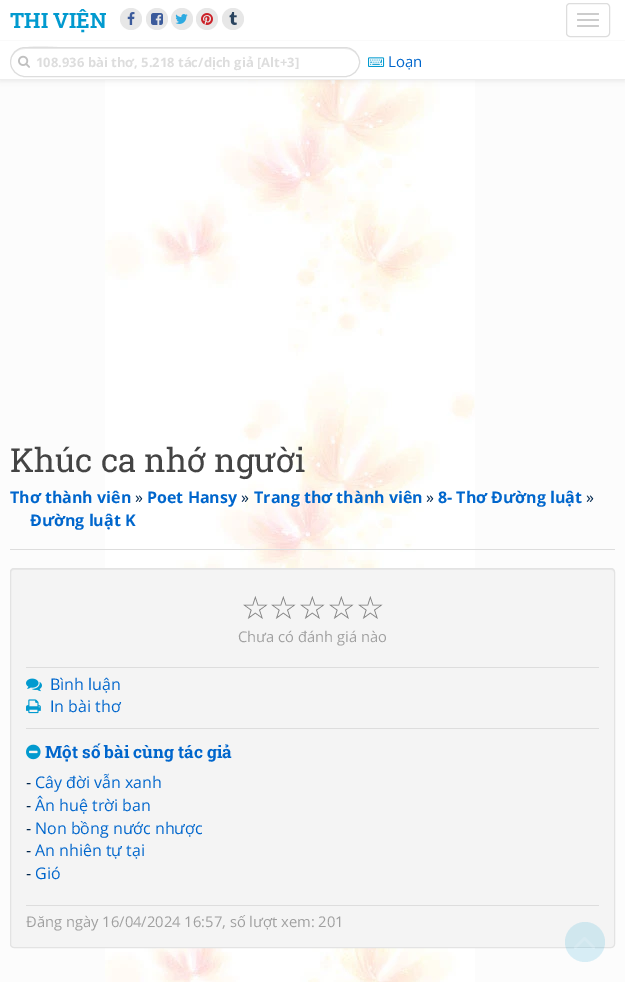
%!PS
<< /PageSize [625 982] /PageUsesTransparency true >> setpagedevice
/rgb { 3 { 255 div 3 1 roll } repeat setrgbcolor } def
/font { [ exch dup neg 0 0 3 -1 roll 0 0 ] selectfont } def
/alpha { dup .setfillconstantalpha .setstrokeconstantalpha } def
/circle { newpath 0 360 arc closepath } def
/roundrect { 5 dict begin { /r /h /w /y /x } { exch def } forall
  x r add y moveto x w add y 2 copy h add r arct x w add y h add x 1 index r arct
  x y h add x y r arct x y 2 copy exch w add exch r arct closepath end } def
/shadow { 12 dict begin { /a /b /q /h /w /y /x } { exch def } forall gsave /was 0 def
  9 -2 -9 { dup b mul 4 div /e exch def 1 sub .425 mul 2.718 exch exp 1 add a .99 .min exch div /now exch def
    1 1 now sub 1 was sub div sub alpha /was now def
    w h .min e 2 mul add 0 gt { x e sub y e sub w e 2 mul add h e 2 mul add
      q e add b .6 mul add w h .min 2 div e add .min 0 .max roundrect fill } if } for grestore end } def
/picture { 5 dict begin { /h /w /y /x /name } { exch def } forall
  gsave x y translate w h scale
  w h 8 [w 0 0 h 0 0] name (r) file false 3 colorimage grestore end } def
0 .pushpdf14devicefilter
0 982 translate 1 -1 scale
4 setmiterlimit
252 252 252 rgb
0 0 625 982 rectfill
(img/1.rgb) 105 80 370 902 picture
0 0 0 rgb
0 1 625 80 0 2.5 0.07 shadow
[
  [0 0 625 79 255 255 255]
  [0 79 625 1 238 238 238]
  [0 40 625 1 250 250 250]
] { aload pop rgb rectfill } forall
231 231 231 rgb
131 19 11 circle fill
(img/2.rgb) 127 12 8 13 picture
157 19 11 circle fill
(img/3.rgb) 151 13 12 12 picture
182 19 11 circle fill
(img/4.rgb) 175 14 13 10 picture
207 19 11 circle fill
(img/5.rgb) 201 13 12 12 picture
233 19 11 circle fill
(img/6.rgb) 229 12 8 13 picture
221 221 221 rgb
566.5 3.5 43 33 3.5 roundrect stroke
204 204 204 rgb
577 13 22 2 1 roundrect fill
577 19 22 2 1 roundrect fill
577 25 22 2 1 roundrect fill
236 236 236 rgb
25 49 moveto 345 49 lineto 353 49 359 55 359 62 curveto 359 55 353 48 345 48 curveto 78 48 lineto 52 48 10 39 11 62 curveto 11 55 17 49 25 49 curveto closepath fill
221 221 221 rgb
10.5 47.5 349 29 14.5 roundrect stroke
(img/7.rgb) 18 55 12 13 picture
(img/8.rgb) 368 57 17 10 picture
244 244 244 rgb
10 568 605 380 4 roundrect fill
232 232 232 rgb
14 570 moveto 611 570 lineto 613 570 614 571 614 573 curveto 614 572 lineto 614 570 613 569 611 569 curveto 14 569 lineto 12 569 11 570 11 572 curveto 11 573 lineto 11 571 12 570 14 570 curveto closepath fill
227 227 227 rgb
10.5 568.5 604 379 3.5 roundrect stroke
0.15 alpha
2 154 207 rgb
585 942 20 circle fill
1 alpha
(img/9.rgb) 574 937 21 12 picture
221 221 221 rgb
10 549 605 1 rectfill
26 667 573 1 rectfill
(img/10.rgb) 26 678 16 14 picture
(img/11.rgb) 26 699 15 15 picture
26 728 573 1 rectfill
(img/12.rgb) 26 744 15 16 picture
26 905 573 1 rectfill
/RobotoSlab-Bold 21 font
2 154 207 rgb
10 28 moveto (THI VIỆN) show
/OpenSans-Bold 13 font
221 221 221 rgb
36 67 moveto (108.936 bài thơ, 5.218 tác/dịch giả [Alt+3]) show
/OpenSans-Regular 15 font
0 102 204 rgb
388 67 moveto (Loạn) show
/RobotoSlab-Regular 33 font
68 68 68 rgb
10 472 moveto (Khúc ca nhớ người) show
/OpenSans-Bold 16 font
0 102 204 rgb
10 503 moveto (Thơ thành viên) show
/OpenSans-Regular 16 font
0 38 77 rgb
135 503 moveto (») show
/OpenSans-Bold 16 font
0 102 204 rgb
147 503 moveto (Poet Hansy) show
/OpenSans-Regular 16 font
0 38 77 rgb
241 503 moveto (») show
/OpenSans-Bold 16 font
0 102 204 rgb
254 503 moveto (Trang thơ thành viên) show
/OpenSans-Regular 16 font
0 38 77 rgb
426 503 moveto (») show
/OpenSans-Bold 16 font
0 102 204 rgb
438 503 moveto (8- Thơ Đường luật) show
/OpenSans-Regular 16 font
0 38 77 rgb
586 503 moveto (») show
/OpenSans-Bold 16 font
0 102 204 rgb
30 526 moveto (Đường luật K) show
/DejaVuSans-Regular 32 font
128 128 128 rgb
[
  [(☆) 241 619]
  [(☆) 269 619]
  [(☆) 298 619]
  [(☆) 327 619]
  [(☆) 356 619]
] { aload pop moveto show } forall
/OpenSans-Regular 14.75 font
160 160 160 rgb
238 642 moveto (Chưa có đánh giá nào) show
/OpenSans-Regular 16 font
0 102 204 rgb
50 690 moveto (Bình luận) show
50 712 moveto (In bài thơ) show
/RobotoSlab-Bold 17 font
45 758 moveto (Một số bài cùng tác giả) show
/OpenSans-Regular 16 font
0 38 77 rgb
26 788 moveto (-) show
0 102 204 rgb
35 788 moveto (Cây đời vẫn xanh) show
0 38 77 rgb
26 811 moveto (-) show
0 102 204 rgb
35 811 moveto (Ân huệ trời ban) show
0 38 77 rgb
26 834 moveto (-) show
0 102 204 rgb
35 834 moveto (Non bồng nước nhược) show
0 38 77 rgb
26 856 moveto (-) show
0 102 204 rgb
35 856 moveto (An nhiên tự tại) show
0 38 77 rgb
26 879 moveto (-) show
0 102 204 rgb
35 879 moveto (Gió) show
/OpenSans-Regular 14.75 font
160 160 160 rgb
26 927 moveto (Đăng ngày 16/04/2024 16:57, số lượt xem: 201) show
.poppdf14devicefilter showpage
